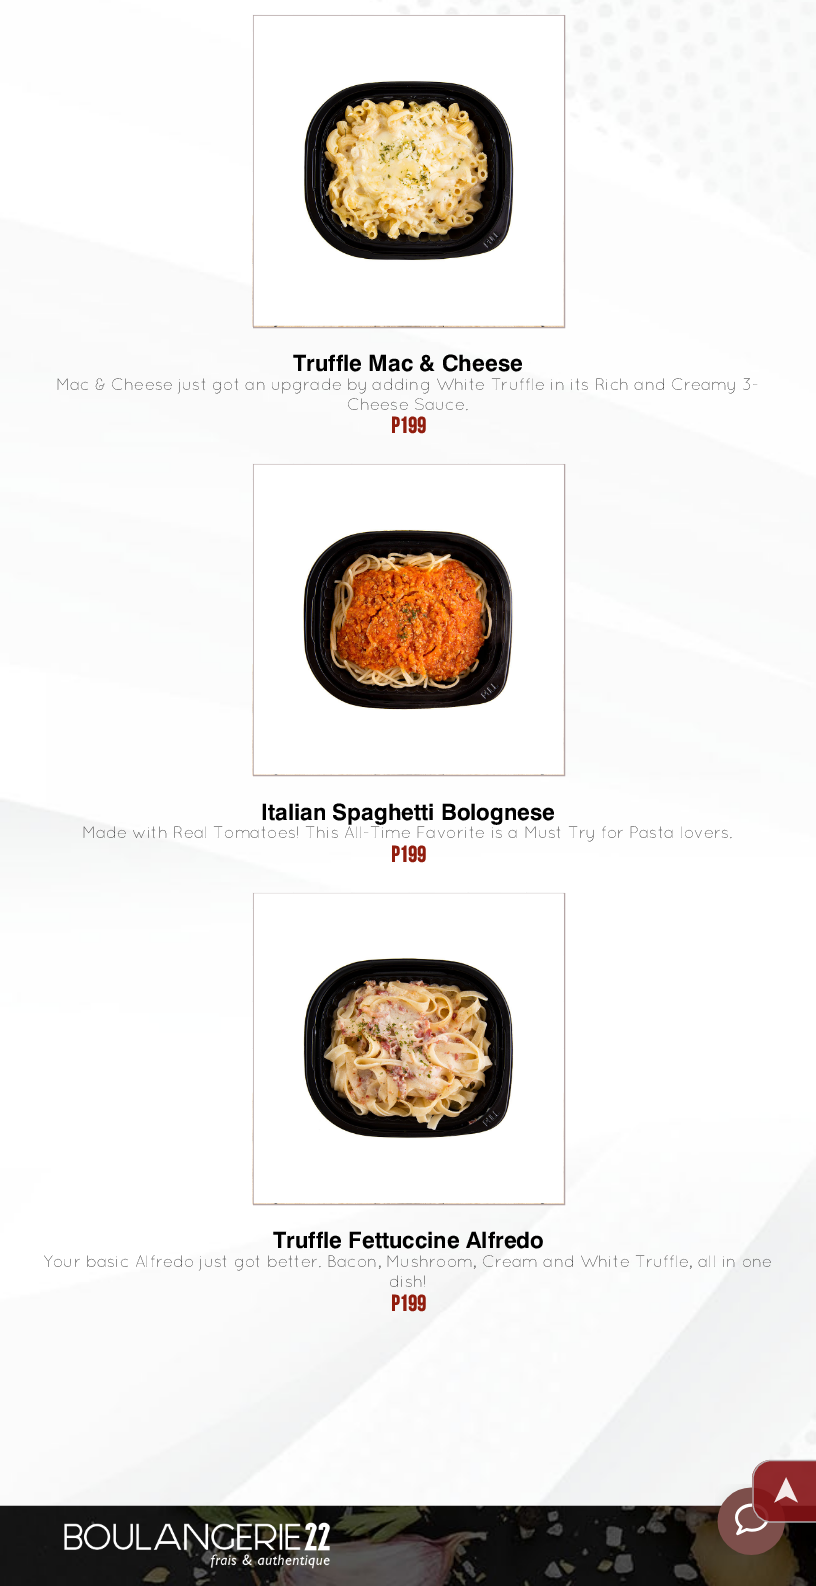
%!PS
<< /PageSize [816 1586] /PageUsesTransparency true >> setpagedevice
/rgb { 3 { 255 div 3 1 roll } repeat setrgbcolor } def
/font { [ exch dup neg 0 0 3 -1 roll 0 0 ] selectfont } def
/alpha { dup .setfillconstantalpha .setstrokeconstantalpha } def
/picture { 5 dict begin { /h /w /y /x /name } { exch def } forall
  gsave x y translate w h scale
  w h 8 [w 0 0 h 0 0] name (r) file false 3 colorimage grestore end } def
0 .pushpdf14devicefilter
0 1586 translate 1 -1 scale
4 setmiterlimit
255 255 255 rgb
0 0 816 1586 rectfill
(img/1.rgb) 0 0 816 1506 picture
(img/2.rgb) 252 14 313 313 picture
180 165 165 rgb
253.5 15.5 311 312 rectstroke
(img/3.rgb) 253 15 311 311 picture
(img/4.rgb) 252 463 313 313 picture
253.5 464.5 311 311 rectstroke
(img/5.rgb) 253 464 311 311 picture
(img/6.rgb) 252 892 313 313 picture
253.5 893.5 311 311 rectstroke
(img/7.rgb) 253 893 311 311 picture
(img/8.rgb) 0 1505 816 81 picture
(img/9.rgb) 64 1522 267 47 picture
(img/10.rgb) 715 1484 72 71 picture
0.9 alpha
133 18 21 rgb
752 1504 moveto 752 1479 lineto 752 1468 761 1460 771 1460 curveto 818 1460 lineto 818 1522 lineto 771 1522 lineto 761 1522 752 1514 752 1504 curveto closepath fill
187 189 191 rgb
1.2 setlinewidth
753 1504 moveto 753 1479 lineto 753 1468.5 761 1460.5 771 1460.5 curveto 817 1460.5 lineto 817 1522 lineto 771 1522 lineto 761 1522 753 1514 753 1504 curveto closepath stroke
/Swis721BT-Bold 22.5 font
1 alpha
0 0 0 rgb
293 371 moveto (Truffle Mac & Cheese) show
/Quicksand-Light 16.65 font
51 51 51 rgb
56 390 moveto (Mac & Cheese just got an upgrade by adding White Truffle in its Rich and Creamy 3-) show
347 410 moveto (Cheese Sauce.) show
/BebasNeue-Bold 22.5 font
145 29 14 rgb
391 433 moveto (P199) show
/Swis721BT-Bold 22.5 font
0 0 0 rgb
261 820 moveto (Italian Spaghetti Bolognese) show
/Quicksand-Light 16.65 font
51 51 51 rgb
82 838 moveto (Made with Real Tomatoes! This All-Time Favorite is a Must Try for Pasta lovers.) show
/BebasNeue-Bold 22.5 font
145 29 14 rgb
391 862 moveto (P199) show
/Swis721BT-Bold 22.5 font
0 0 0 rgb
273 1248 moveto (Truffle Fettuccine Alfredo) show
/Quicksand-Light 16.65 font
51 51 51 rgb
43 1267 moveto (Your basic Alfredo just got better. Bacon, Mushroom, Cream and White Truffle, all in one) show
389 1287 moveto (dish!) show
/BebasNeue-Bold 22.5 font
145 29 14 rgb
391 1311 moveto (P199) show
/DejaVuSans-Regular 38 font
244 234 234 rgb
gsave 798 1507 translate -90 rotate 0 0 moveto (➤) show grestore
.poppdf14devicefilter showpage
